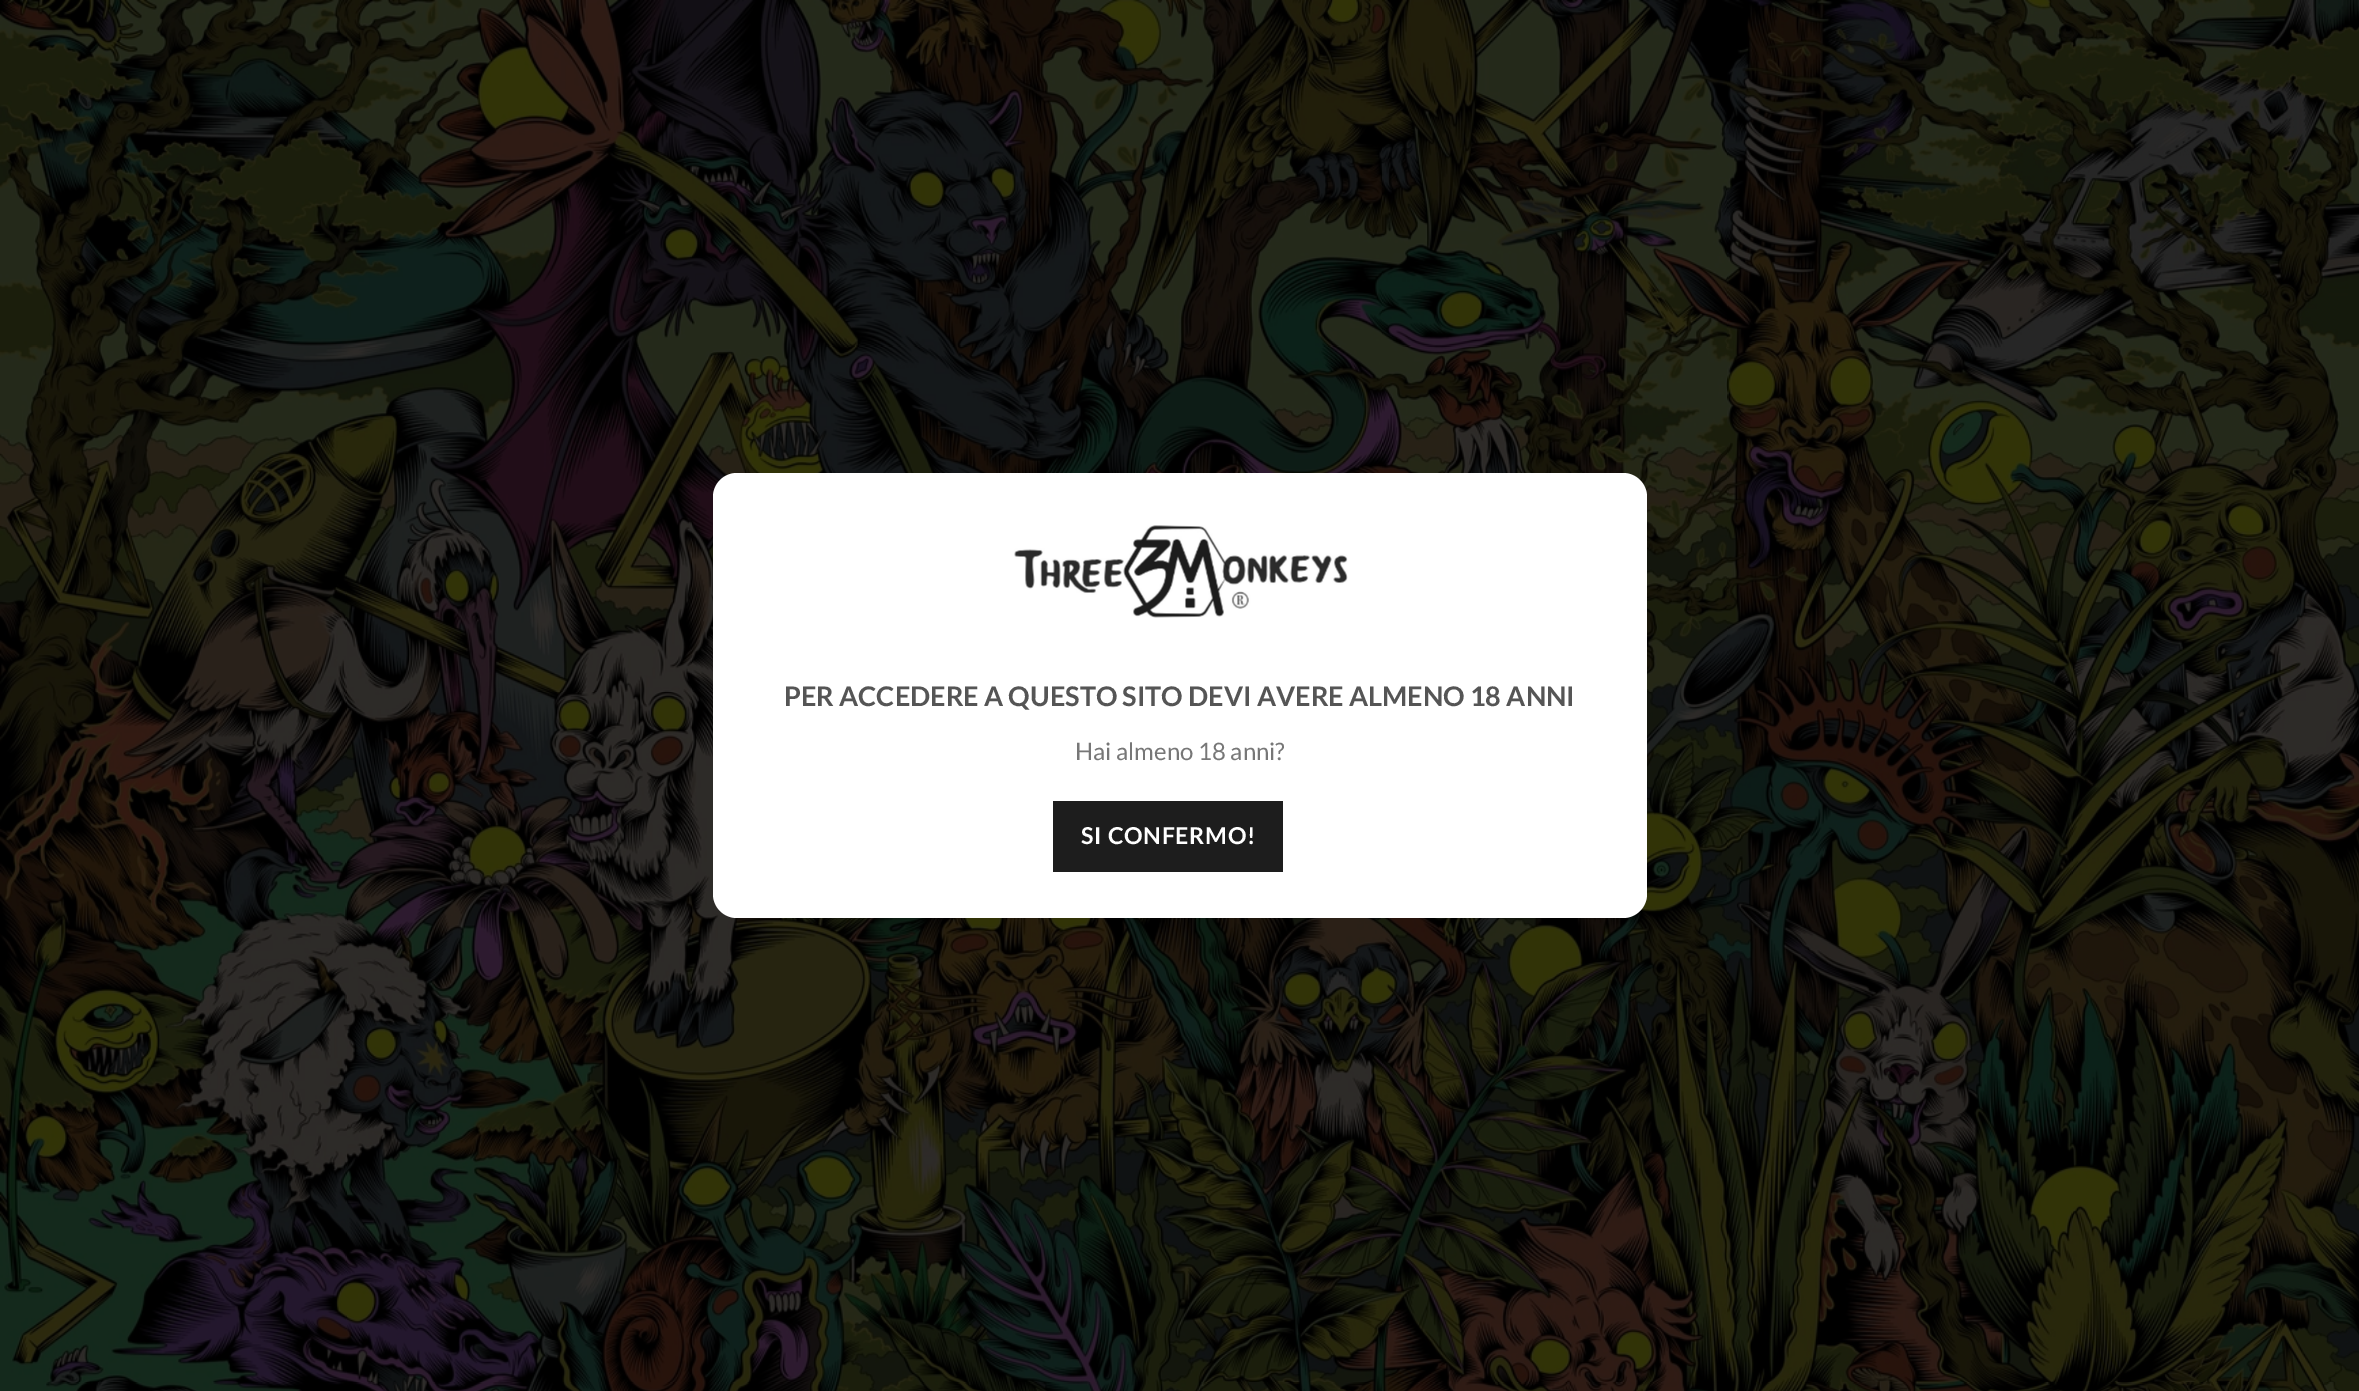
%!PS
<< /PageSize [2359 1391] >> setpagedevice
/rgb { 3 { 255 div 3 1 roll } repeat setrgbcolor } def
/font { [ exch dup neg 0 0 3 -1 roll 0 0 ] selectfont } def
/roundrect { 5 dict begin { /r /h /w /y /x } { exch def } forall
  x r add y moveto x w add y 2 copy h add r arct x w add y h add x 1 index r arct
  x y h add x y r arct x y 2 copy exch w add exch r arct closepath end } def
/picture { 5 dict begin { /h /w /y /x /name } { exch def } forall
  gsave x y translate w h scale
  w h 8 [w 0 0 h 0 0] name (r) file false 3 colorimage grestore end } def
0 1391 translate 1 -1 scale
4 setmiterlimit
255 255 255 rgb
0 0 2359 1391 rectfill
(img/1.rgb) 0 0 2359 1391 picture
713 473 934 445 24 roundrect fill
(img/2.rgb) 1014 525 334 93 picture
29 29 29 rgb
1053 801 230 71 rectfill
/Lato-Bold 27 font
85 85 85 rgb
784 706 moveto (PER ACCEDERE A QUESTO SITO DEVI AVERE ALMENO 18 ANNI) show
/Lato-Regular 24 font
119 119 119 rgb
1075 760 moveto (Hai almeno 18 anni?) show
/Lato-Bold 23.25 font
255 255 255 rgb
1081 844 moveto 0.75 0 (SI CONFERMO!) ashow
showpage
